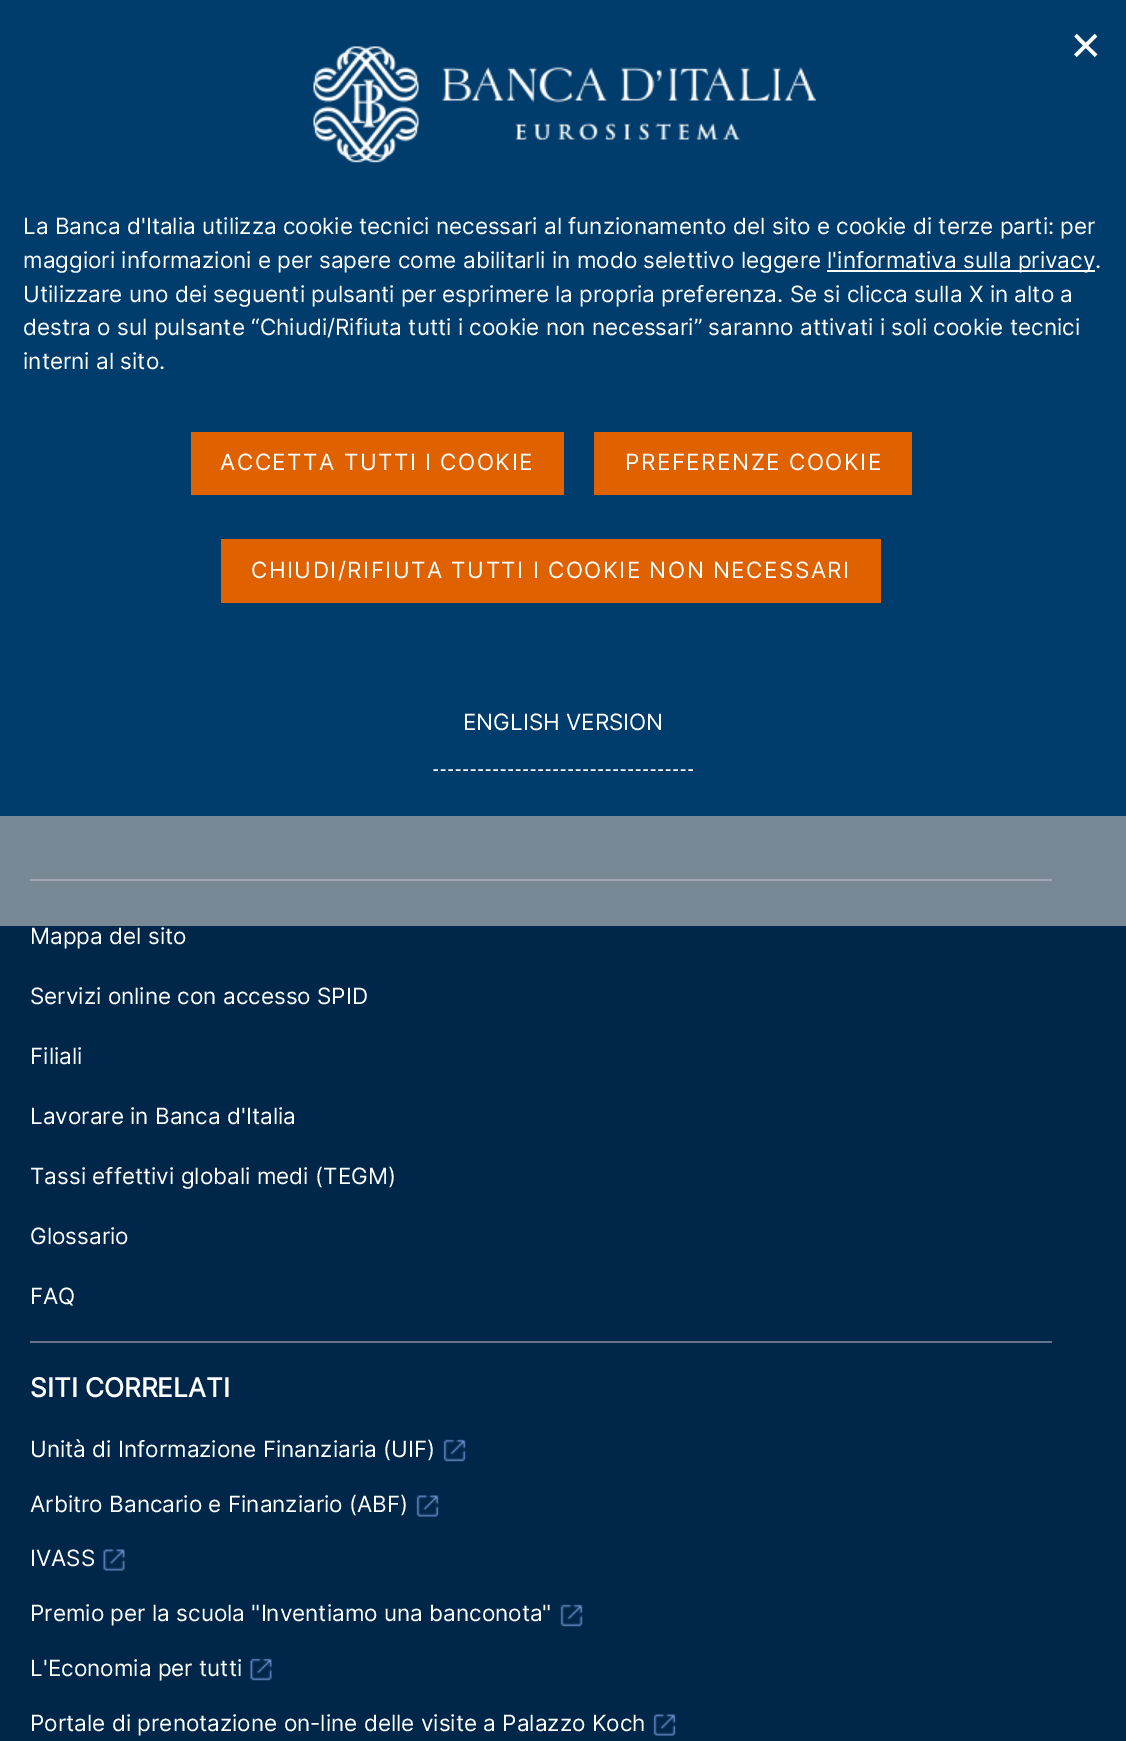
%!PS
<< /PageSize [1126 1741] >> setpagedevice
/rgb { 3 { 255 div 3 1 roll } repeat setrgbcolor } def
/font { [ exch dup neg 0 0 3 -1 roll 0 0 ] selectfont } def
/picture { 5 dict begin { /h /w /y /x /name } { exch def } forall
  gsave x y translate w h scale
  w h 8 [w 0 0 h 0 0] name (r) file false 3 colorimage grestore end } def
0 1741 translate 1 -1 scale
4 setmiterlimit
0 39 73 rgb
0 0 1126 1741 rectfill
[
  [0 0 1126 816 0 60 108]
  [827 270 268 2 255 255 255]
  [191 432 373 63 224 97 0]
  [594 432 318 63 224 97 0]
  [221 539 660 64 224 97 0]
] { aload pop rgb rectfill } forall
255 255 255 rgb
1.5 setlinewidth
[4.5 3] 0 setdash
433.5 770 moveto 693 770 lineto stroke
(img/1.rgb) 313 46 503 117 picture
[
  [0 816 1126 110 120 136 149]
  [30 879 1022 2 160 166 176]
  [30 1341 1022 2 100 116 139]
] { aload pop rgb rectfill } forall
(img/2.rgb) 443 1439 23 23 picture
(img/3.rgb) 416 1495 23 22 picture
(img/4.rgb) 103 1549 22 22 picture
(img/2.rgb) 560 1604 23 23 picture
(img/5.rgb) 250 1658 22 23 picture
(img/3.rgb) 653 1714 23 22 picture
/DejaVuSans-Regular 40 font
255 255 255 rgb
1069 60 moveto 1.5 0 (✕) ashow
/Inter-Regular 22.5 font
[
  [(La Banca d'Italia utilizza cookie tecnici necessari al funzionamento del sito e cookie di terze parti: per) 23 234]
  [(maggiori informazioni e per sapere come abilitarli in modo selettivo leggere) 23 268]
  [(l'informativa sulla privacy.) 827 268]
  [(Utilizzare uno dei seguenti pulsanti per esprimere la propria preferenza. Se si clicca sulla X in alto a) 23 302]
  [(destra o sul pulsante “Chiudi/Rifiuta tutti i cookie non necessari” saranno attivati i soli cookie tecnici) 23 335]
  [(interni al sito.) 23 369]
] { aload pop moveto show } forall
220 470 moveto 1.5 0 (ACCETTA TUTTI I COOKIE) ashow
625 470 moveto 1.5 0 (PREFERENZE COOKIE) ashow
251 578 moveto 1.5 0 (CHIUDI/RIFIUTA TUTTI I COOKIE NON NECESSARI) ashow
[
  [(ENGLISH VERSION) 463 730]
  [(Mappa del sito) 30 944]
  [(Servizi online con accesso SPID) 30 1004]
  [(Filiali) 30 1064]
  [(Lavorare in Banca d'Italia) 30 1124]
  [(Tassi effettivi globali medi \(TEGM\)) 30 1184]
  [(Glossario) 30 1244]
  [(FAQ) 30 1304]
] { aload pop moveto show } forall
/Inter-Bold 26.25 font
30 1397 moveto (SITI CORRELATI) show
/Inter-Regular 22.5 font
[
  [(Unità di Informazione Finanziaria \(UIF\)) 30 1457]
  [(Arbitro Bancario e Finanziario \(ABF\)) 30 1512]
  [(IVASS) 30 1566]
  [(Premio per la scuola "Inventiamo una banconota") 30 1621]
  [(L'Economia per tutti) 30 1676]
  [(Portale di prenotazione on-line delle visite a Palazzo Koch) 30 1731]
] { aload pop moveto show } forall
showpage
